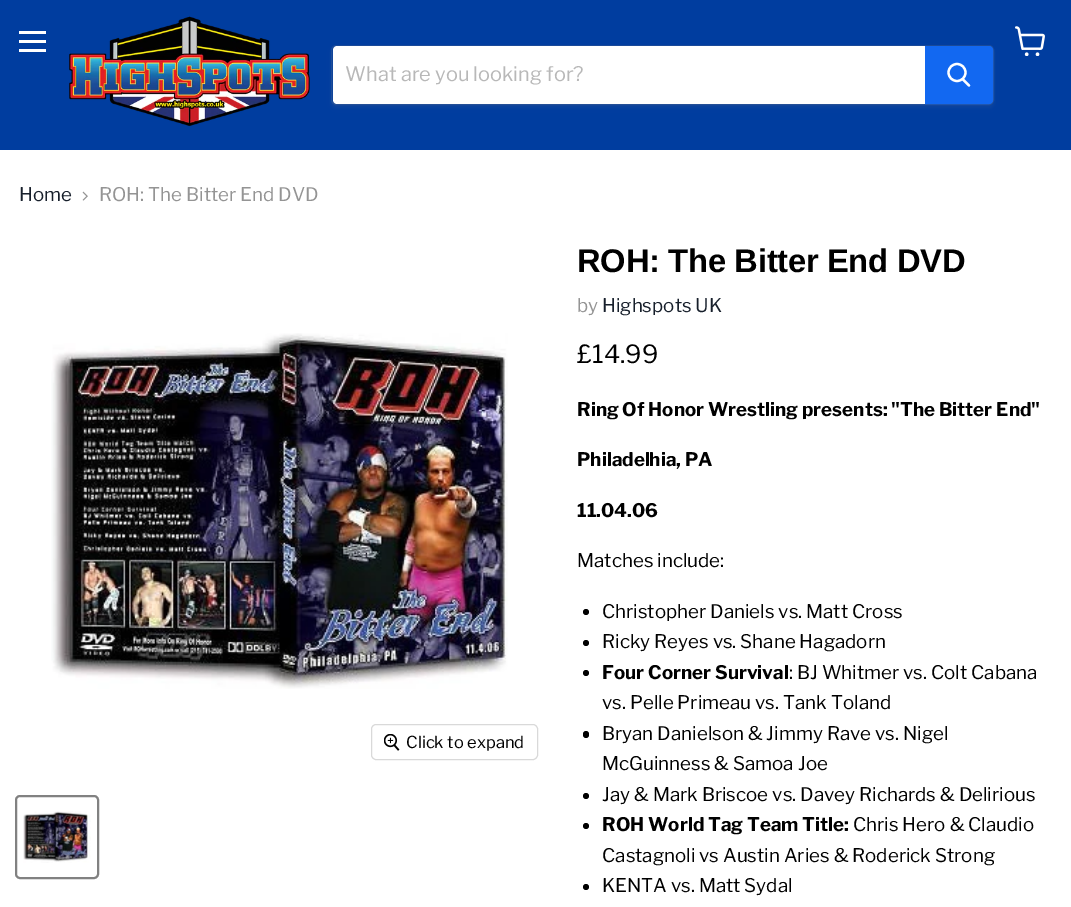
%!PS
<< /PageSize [1071 907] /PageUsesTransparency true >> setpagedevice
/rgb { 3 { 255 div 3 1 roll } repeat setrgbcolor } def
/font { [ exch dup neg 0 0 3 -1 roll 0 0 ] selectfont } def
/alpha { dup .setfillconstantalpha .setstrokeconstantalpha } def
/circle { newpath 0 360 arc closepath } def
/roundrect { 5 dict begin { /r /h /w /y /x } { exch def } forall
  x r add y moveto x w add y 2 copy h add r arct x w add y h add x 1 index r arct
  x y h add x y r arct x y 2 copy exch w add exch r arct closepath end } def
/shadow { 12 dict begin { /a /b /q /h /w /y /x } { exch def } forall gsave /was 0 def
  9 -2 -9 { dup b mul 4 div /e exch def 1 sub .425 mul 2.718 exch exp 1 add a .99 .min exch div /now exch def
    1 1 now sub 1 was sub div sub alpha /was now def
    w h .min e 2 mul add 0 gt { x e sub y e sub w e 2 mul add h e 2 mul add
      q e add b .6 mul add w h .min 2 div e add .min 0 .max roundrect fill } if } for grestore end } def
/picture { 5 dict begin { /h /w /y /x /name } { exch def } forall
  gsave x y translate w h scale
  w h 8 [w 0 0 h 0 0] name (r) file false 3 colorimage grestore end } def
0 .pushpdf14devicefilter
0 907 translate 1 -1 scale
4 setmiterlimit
255 255 255 rgb
0 0 1071 907 rectfill
[
  [0 0 1071 150 0 61 159]
  [19 31 27 3 255 255 255]
  [19 40 27 3 255 255 255]
  [19 49 27 3 255 255 255]
] { aload pop rgb rectfill } forall
(img/1.rgb) 1015 26 30 30 picture
(img/2.rgb) 69 16 241 111 picture
128 128 128 rgb
331 48 663 60 5 2 0.11 shadow
0.2 alpha
331.5 45.5 662 59 4.5 roundrect stroke
1 alpha
255 255 255 rgb
337 46 moveto 925 46 lineto 925 104 lineto 337 104 lineto 335 104 333 102 333 100 curveto 333 50 lineto 333 48 335 46 337 46 curveto closepath fill
18 104 241 rgb
925.5 46.5 moveto 989 46.5 lineto 991 46.5 992.5 48 992.5 50 curveto 992.5 100 lineto 992.5 102 991 103.5 989 103.5 curveto 925.5 103.5 lineto closepath gsave fill grestore
stroke
255 255 255 rgb
2.2 setlinewidth
1 setlinecap
969 85.5 moveto 963 79.5 lineto stroke
0 setlinecap
957 72.5 8.5 circle stroke
(img/3.rgb) 82 191 6 10 picture
(img/4.rgb) 51 333 457 356 picture
217 217 217 rgb
1 setlinewidth
371.5 724.5 166 35 4.5 roundrect stroke
(img/5.rgb) 384 734 16 17 picture
129 129 129 rgb
2 setlinewidth
16 796 82 82 4 roundrect stroke
(img/6.rgb) 23 811 68 52 picture
0 0 0 rgb
586 612 3 circle fill
586 643 3 circle fill
586 673 3 circle fill
583 731 6 7 3 roundrect fill
586 796 3 circle fill
586 826 3 circle fill
586 887 3 circle fill
/LibreFranklin-Regular 20 font
184 184 184 rgb
345 81 moveto (What are you looking for?) show
/LibreFranklin-Regular 18.75 font
23 31 43 rgb
19 201 moveto (Home) show
148 148 148 rgb
99 201 moveto (ROH: The Bitter End DVD) show
/LibreFranklin-Regular 16.5 font
0 0 0 rgb
406 748 moveto (Click to expand) show
/Arimo-Bold 32.75 font
577 272 moveto -0.3 0 (ROH: The Bitter End DVD) ashow
/LibreFranklin-Regular 18.75 font
148 148 148 rgb
577 312 moveto (by) show
23 31 43 rgb
602 312 moveto (Highspots UK) show
/LibreFranklin-Regular 25 font
0 0 0 rgb
577 363 moveto (£14.99) show
/LibreFranklin-Bold 18.75 font
[
  [(Ring Of Honor Wrestling presents: "The Bitter End") 577 416]
  [(Philadelhia, PA) 577 466]
  [(11.04.06) 577 517]
] { aload pop moveto show } forall
/LibreFranklin-Regular 18.75 font
[
  [(Matches include:) 577 567]
  [(Christopher Daniels vs. Matt Cross) 602 618]
  [(Ricky Reyes vs. Shane Hagadorn) 602 648]
] { aload pop moveto show } forall
/LibreFranklin-Bold 18.75 font
602 679 moveto (Four Corner Survival) show
/LibreFranklin-Regular 18.75 font
[
  [(: BJ Whitmer vs. Colt Cabana) 789 679]
  [(vs. Pelle Primeau vs. Tank Toland) 602 709]
  [(Bryan Danielson & Jimmy Rave vs. Nigel) 602 740]
  [(McGuinness & Samoa Joe) 602 770]
  [(Jay & Mark Briscoe vs. Davey Richards & Delirious) 602 801]
] { aload pop moveto show } forall
/LibreFranklin-Bold 18.75 font
602 831 moveto (ROH World Tag Team Title:) show
/LibreFranklin-Regular 18.75 font
[
  [(Chris Hero & Claudio) 853 831]
  [(Castagnoli vs Austin Aries & Roderick Strong) 602 862]
  [(KENTA vs. Matt Sydal) 602 892]
] { aload pop moveto show } forall
.poppdf14devicefilter showpage
